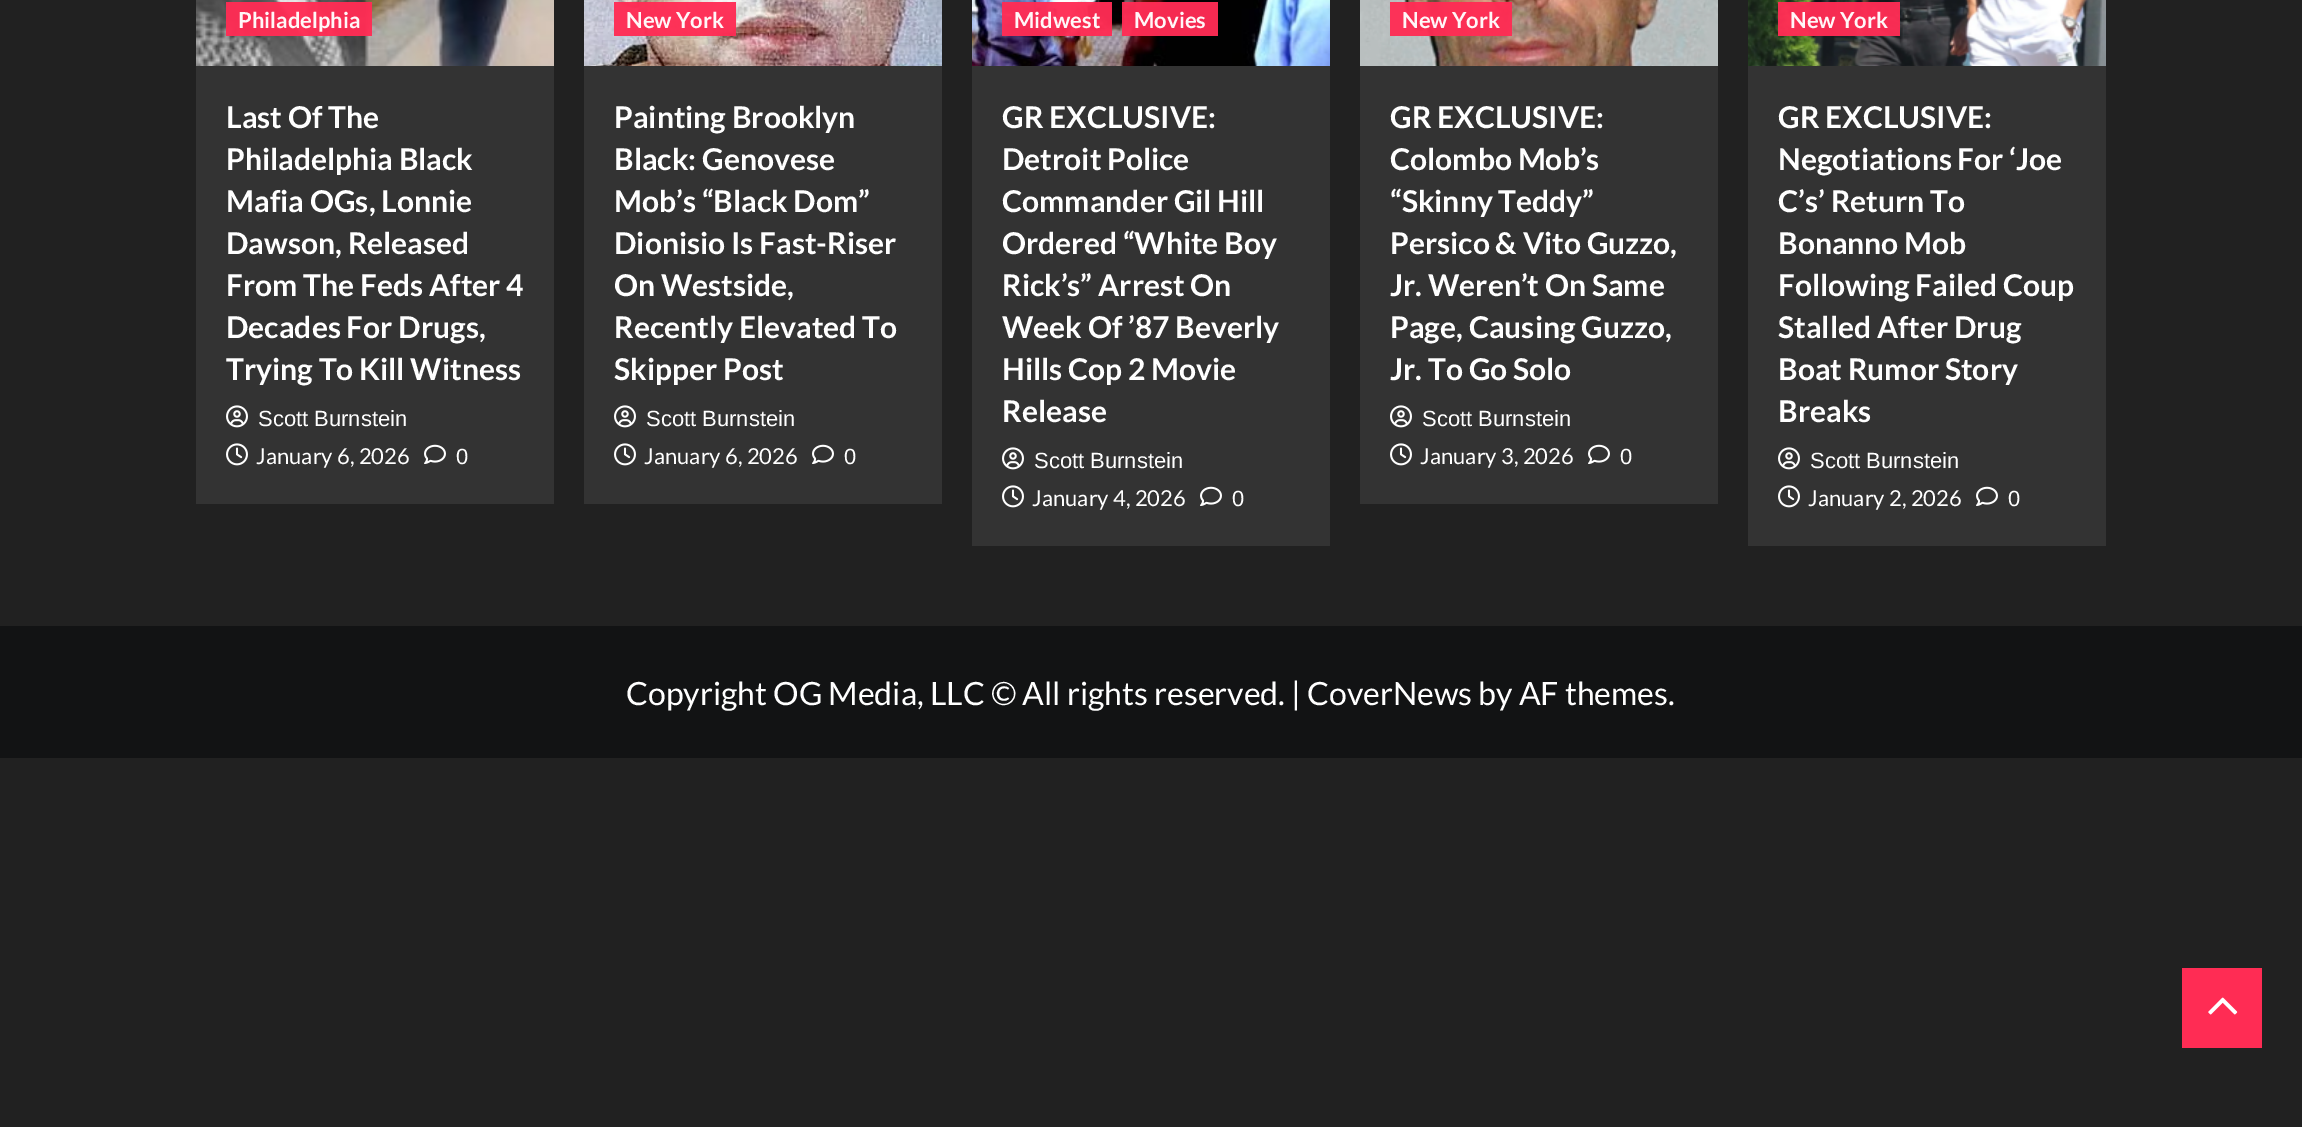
%!PS
<< /PageSize [2302 1127] /PageUsesTransparency true >> setpagedevice
/rgb { 3 { 255 div 3 1 roll } repeat setrgbcolor } def
/font { [ exch dup neg 0 0 3 -1 roll 0 0 ] selectfont } def
/alpha { dup .setfillconstantalpha .setstrokeconstantalpha } def
/picture { 5 dict begin { /h /w /y /x /name } { exch def } forall
  gsave x y translate w h scale
  w h 8 [w 0 0 h 0 0] name (r) file false 3 colorimage grestore end } def
0 .pushpdf14devicefilter
0 1127 translate 1 -1 scale
4 setmiterlimit
33 33 33 rgb
0 0 2302 1127 rectfill
51 51 51 rgb
196 66 358 438 rectfill
(img/1.rgb) 196 0 358 66 picture
0.96 alpha
255 44 84 rgb
226 2 146 34 rectfill
1 alpha
(img/2.rgb) 226 405 22 23 picture
(img/3.rgb) 226 443 22 23 picture
(img/4.rgb) 424 444 22 20 picture
51 51 51 rgb
584 66 358 438 rectfill
(img/5.rgb) 584 0 358 66 picture
0.96 alpha
255 44 84 rgb
614 2 122 34 rectfill
1 alpha
(img/2.rgb) 614 405 22 23 picture
(img/3.rgb) 614 443 22 23 picture
(img/4.rgb) 812 444 22 20 picture
51 51 51 rgb
972 66 358 480 rectfill
(img/6.rgb) 972 0 358 66 picture
0.96 alpha
255 44 84 rgb
1002 2 110 34 rectfill
1122 2 96 34 rectfill
1 alpha
(img/2.rgb) 1002 447 22 23 picture
(img/3.rgb) 1002 485 22 23 picture
(img/4.rgb) 1200 486 22 20 picture
51 51 51 rgb
1360 66 358 438 rectfill
(img/7.rgb) 1360 0 358 66 picture
0.96 alpha
255 44 84 rgb
1390 2 122 34 rectfill
1 alpha
(img/2.rgb) 1390 405 22 23 picture
(img/3.rgb) 1390 443 22 23 picture
(img/4.rgb) 1588 444 22 20 picture
51 51 51 rgb
1748 66 358 480 rectfill
(img/8.rgb) 1748 0 358 66 picture
0.96 alpha
255 44 84 rgb
1778 2 122 34 rectfill
1 alpha
(img/2.rgb) 1778 447 22 23 picture
(img/3.rgb) 1778 485 22 23 picture
(img/4.rgb) 1976 486 22 20 picture
18 19 20 rgb
0 626 2302 132 rectfill
255 44 84 rgb
2182 968 80 80 rectfill
(img/9.rgb) 2208 997 30 18 picture
/Lato-Bold 22 font
255 247 248 rgb
238 28 moveto (Philadelphia) show
/Lato-Bold 30 font
255 255 255 rgb
[
  [(Last Of The) 226 128]
  [(Philadelphia Black) 226 170]
  [(Mafia OGs, Lonnie) 226 212]
  [(Dawson, Released) 226 254]
  [(From The Feds After 4) 226 296]
  [(Decades For Drugs,) 226 338]
  [(Trying To Kill Witness) 226 380]
] { aload pop moveto show } forall
/LiberationSans-Regular 22 font
258 426 moveto (Scott Burnstein) show
/Lato-Regular 22 font
256 464 moveto (January 6, 2026) show
/LiberationSans-Regular 22 font
456 464 moveto (0) show
/Lato-Bold 22 font
255 247 248 rgb
626 28 moveto (New York) show
/Lato-Bold 30 font
255 255 255 rgb
[
  [(Painting Brooklyn) 614 128]
  [(Black: Genovese) 614 170]
  [(Mob’s “Black Dom”) 614 212]
  [(Dionisio Is Fast-Riser) 614 254]
  [(On Westside,) 614 296]
  [(Recently Elevated To) 614 338]
  [(Skipper Post) 614 380]
] { aload pop moveto show } forall
/LiberationSans-Regular 22 font
646 426 moveto (Scott Burnstein) show
/Lato-Regular 22 font
644 464 moveto (January 6, 2026) show
/LiberationSans-Regular 22 font
844 464 moveto (0) show
/Lato-Bold 22 font
255 247 248 rgb
1014 28 moveto (Midwest) show
1134 28 moveto (Movies) show
/Lato-Bold 30 font
255 255 255 rgb
[
  [(GR EXCLUSIVE:) 1002 128]
  [(Detroit Police) 1002 170]
  [(Commander Gil Hill) 1002 212]
  [(Ordered “White Boy) 1002 254]
  [(Rick’s” Arrest On) 1002 296]
  [(Week Of ’87 Beverly) 1002 338]
  [(Hills Cop 2 Movie) 1002 380]
  [(Release) 1002 422]
] { aload pop moveto show } forall
/LiberationSans-Regular 22 font
1034 468 moveto (Scott Burnstein) show
/Lato-Regular 22 font
1032 506 moveto (January 4, 2026) show
/LiberationSans-Regular 22 font
1232 506 moveto (0) show
/Lato-Bold 22 font
255 247 248 rgb
1402 28 moveto (New York) show
/Lato-Bold 30 font
255 255 255 rgb
[
  [(GR EXCLUSIVE:) 1390 128]
  [(Colombo Mob’s) 1390 170]
  [(“Skinny Teddy”) 1390 212]
  [(Persico & Vito Guzzo,) 1390 254]
  [(Jr. Weren’t On Same) 1390 296]
  [(Page, Causing Guzzo,) 1390 338]
  [(Jr. To Go Solo) 1390 380]
] { aload pop moveto show } forall
/LiberationSans-Regular 22 font
1422 426 moveto (Scott Burnstein) show
/Lato-Regular 22 font
1420 464 moveto (January 3, 2026) show
/LiberationSans-Regular 22 font
1620 464 moveto (0) show
/Lato-Bold 22 font
255 247 248 rgb
1790 28 moveto (New York) show
/Lato-Bold 30 font
255 255 255 rgb
[
  [(GR EXCLUSIVE:) 1778 128]
  [(Negotiations For ‘Joe) 1778 170]
  [(C’s’ Return To) 1778 212]
  [(Bonanno Mob) 1778 254]
  [(Following Failed Coup) 1778 296]
  [(Stalled After Drug) 1778 338]
  [(Boat Rumor Story) 1778 380]
  [(Breaks) 1778 422]
] { aload pop moveto show } forall
/LiberationSans-Regular 22 font
1810 468 moveto (Scott Burnstein) show
/Lato-Regular 22 font
1808 506 moveto (January 2, 2026) show
/LiberationSans-Regular 22 font
2008 506 moveto (0) show
/Lato-Regular 32 font
626 705 moveto (Copyright OG Media, LLC © All rights reserved. | CoverNews by AF themes.) show
.poppdf14devicefilter showpage
